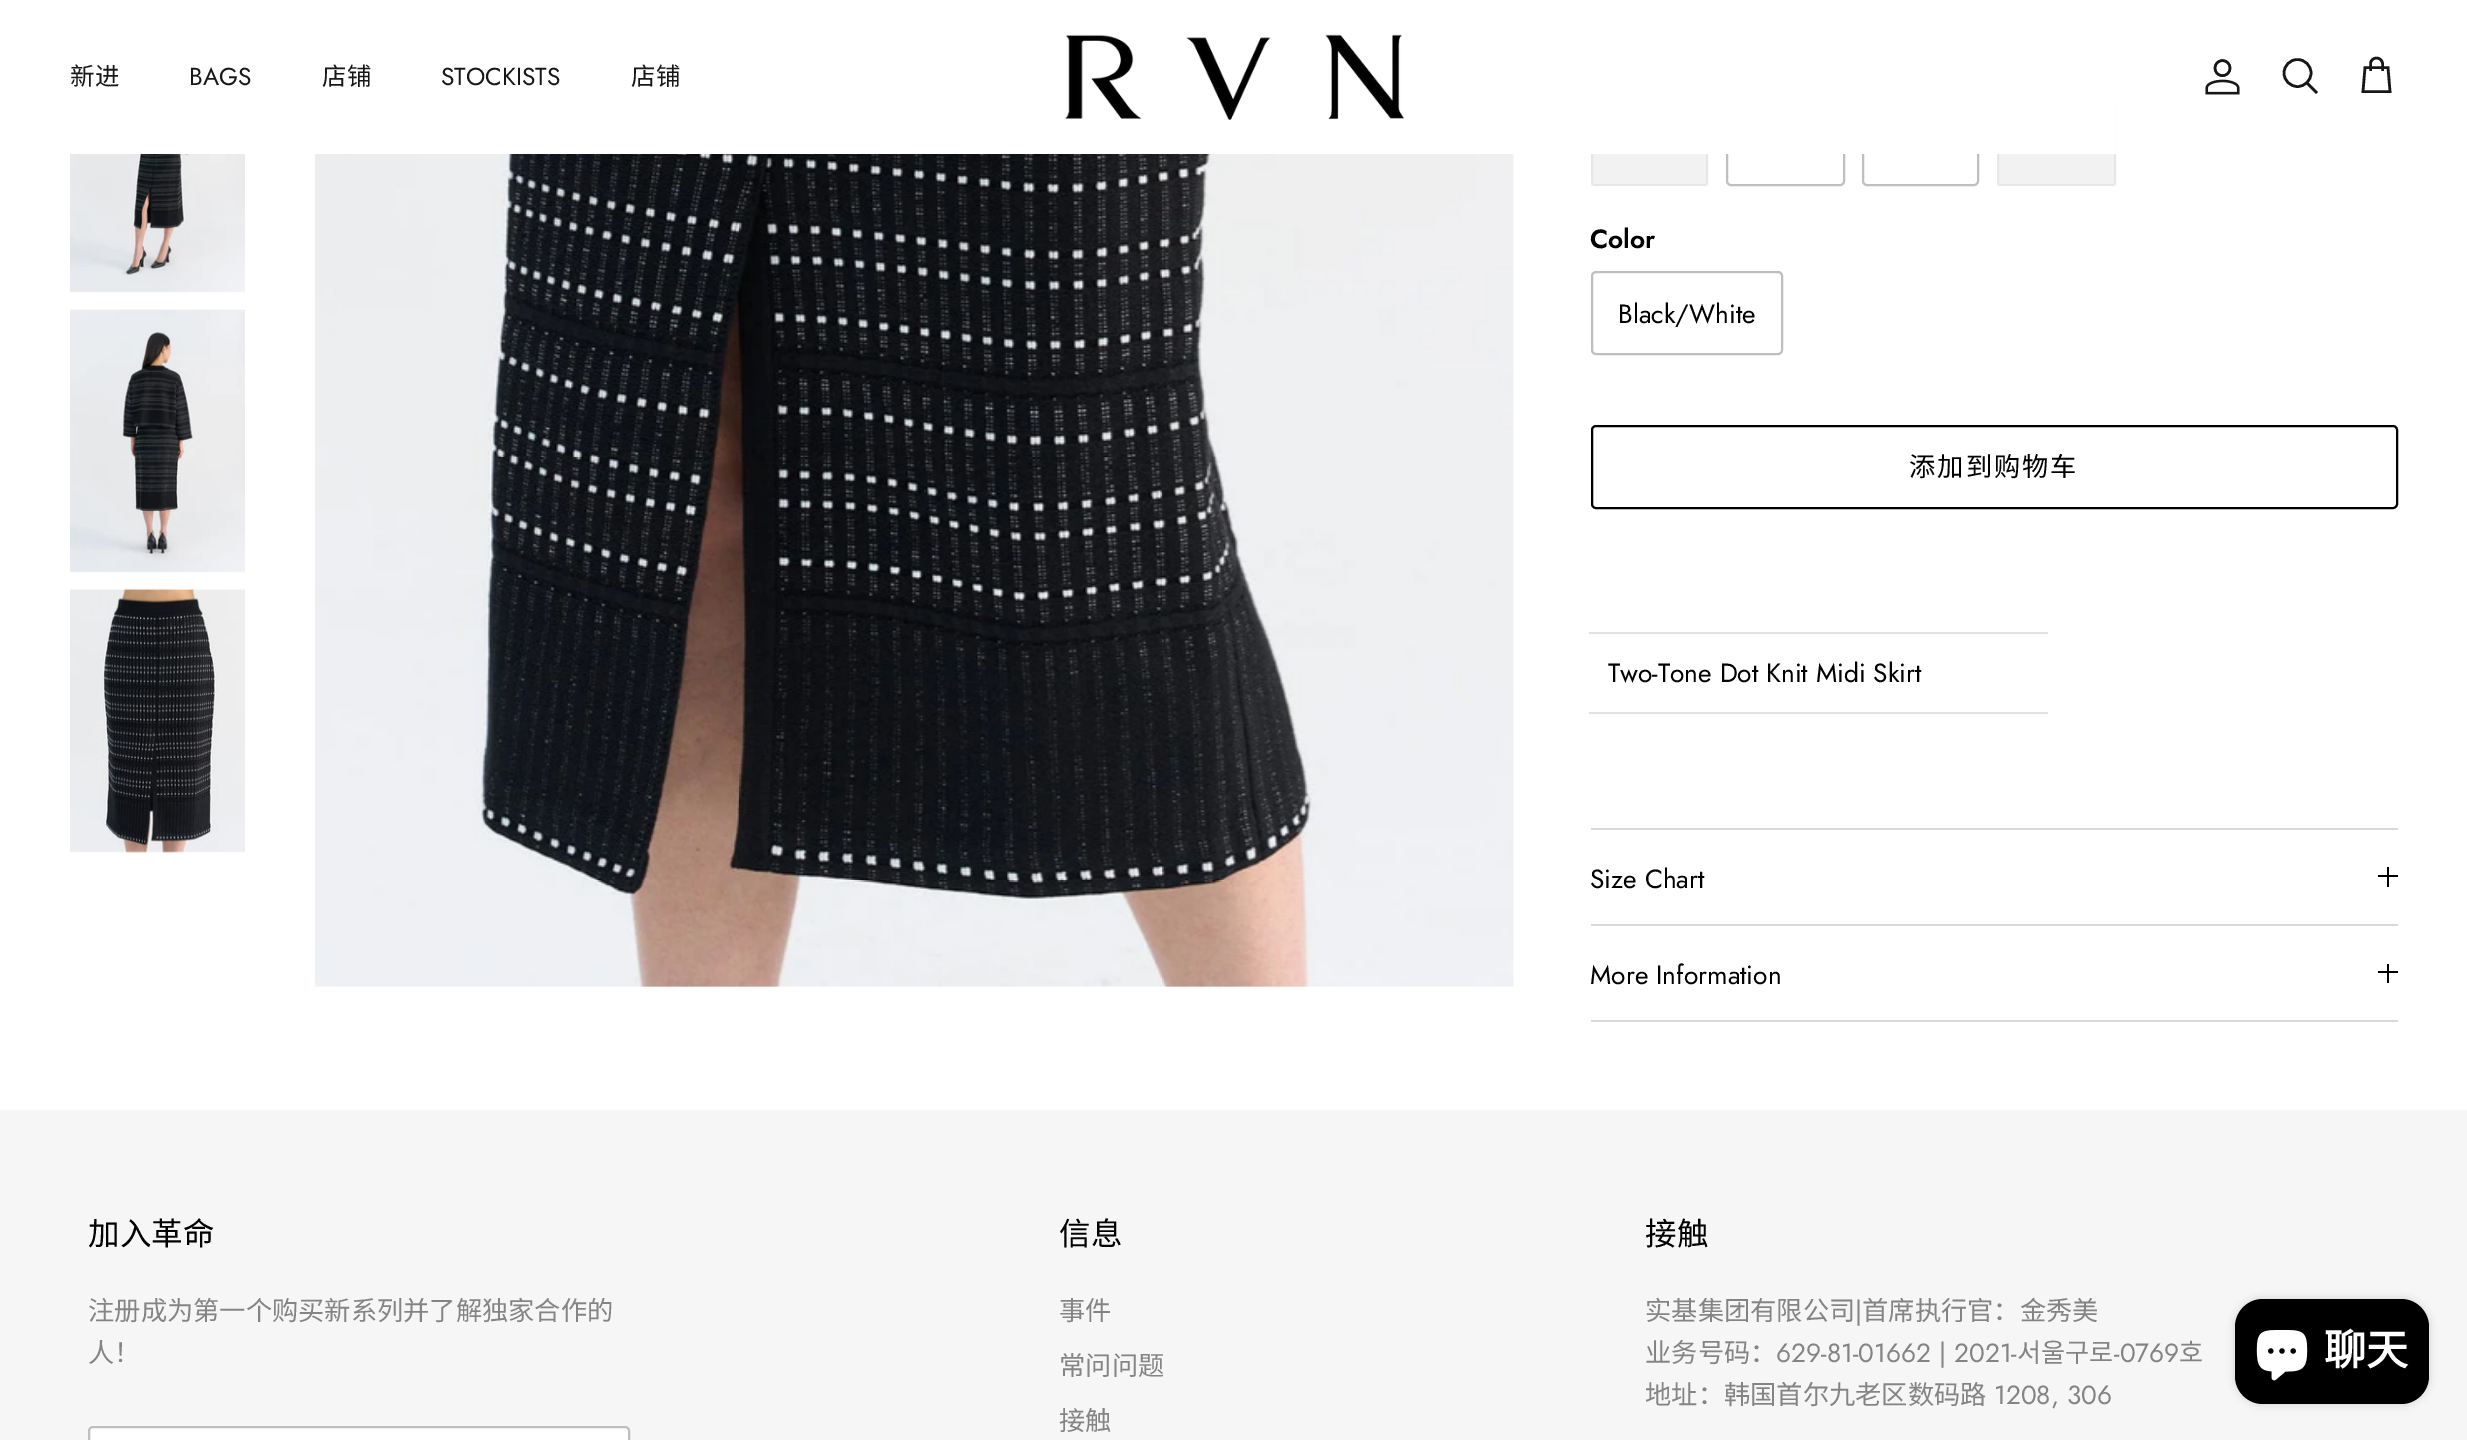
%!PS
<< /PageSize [2467 1440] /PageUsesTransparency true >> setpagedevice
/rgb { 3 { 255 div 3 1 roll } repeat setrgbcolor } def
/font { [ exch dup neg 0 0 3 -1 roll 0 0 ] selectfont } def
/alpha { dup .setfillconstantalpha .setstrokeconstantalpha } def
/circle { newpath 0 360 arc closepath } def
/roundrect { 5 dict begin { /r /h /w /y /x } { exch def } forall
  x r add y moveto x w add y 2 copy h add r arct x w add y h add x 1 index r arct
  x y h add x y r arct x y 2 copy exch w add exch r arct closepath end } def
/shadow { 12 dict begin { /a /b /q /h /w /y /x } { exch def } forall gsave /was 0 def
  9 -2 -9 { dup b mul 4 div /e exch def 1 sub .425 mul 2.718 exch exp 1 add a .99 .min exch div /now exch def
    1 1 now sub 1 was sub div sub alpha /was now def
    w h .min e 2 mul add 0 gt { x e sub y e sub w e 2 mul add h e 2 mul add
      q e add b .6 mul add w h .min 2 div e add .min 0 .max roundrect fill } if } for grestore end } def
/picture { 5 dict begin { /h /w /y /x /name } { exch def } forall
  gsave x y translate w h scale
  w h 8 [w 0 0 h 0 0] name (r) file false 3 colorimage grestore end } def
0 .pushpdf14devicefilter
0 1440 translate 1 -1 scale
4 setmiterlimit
255 255 255 rgb
0 0 2467 1440 rectfill
242 242 242 rgb
1591 102 117 84 5 roundrect fill
0.05 alpha
0 0 0 rgb
2 setlinewidth
1592 103 115 82 rectstroke
1 alpha
191 191 191 rgb
1727 103 117 82 4 roundrect stroke
1863 103 115 82 4 roundrect stroke
242 242 242 rgb
1997 102 119 84 5 roundrect fill
0.05 alpha
0 0 0 rgb
1998 103 117 82 rectstroke
1 alpha
255 255 255 rgb
1591 102 525 52 rectfill
(img/1.rgb) 1065 34 340 86 picture
(img/2.rgb) 2205 59 35 36 picture
23 23 23 rgb
2.6 setlinewidth
2297.5 73 13.5 circle stroke
2 setlinecap
2308 84 moveto 2316 92 lineto stroke
0 setlinecap
2382.5 71 moveto 2382.5 63.5 lineto 2382.5 60.5 2379.5 58 2376.5 58 curveto 2373.5 58 2370.5 60.5 2370.5 63.5 curveto 2370.5 71 lineto 2365 67.5 moveto 2388 67.5 lineto 2390 91.5 lineto 2363 91.5 lineto closepath stroke
(img/3.rgb) 70 154 175 139 picture
(img/4.rgb) 70 309 175 264 picture
(img/5.rgb) 70 588 175 265 picture
(img/6.rgb) 315 154 1199 833 picture
191 191 191 rgb
2 setlinewidth
1592 272 190 82 4 roundrect stroke
0 0 0 rgb
1592 426 805 82 4 roundrect stroke
[
  [1589 632 459 2 226 226 226]
  [1589 712 459 2 226 226 226]
  [1591 828 807 2 217 217 217]
  [1591 924 807 2 217 217 217]
  [2387 867 2 20 0 0 0]
  [2378 875 20 2 0 0 0]
  [1591 1020 807 2 217 217 217]
  [2387 964 2 19 0 0 0]
  [2378 971 20 2 0 0 0]
  [0 1110 2467 330 246 246 246]
] { aload pop rgb rectfill } forall
255 255 255 rgb
89 1427 540 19 4 roundrect gsave fill grestore
191 191 191 rgb
stroke
0 0 0 rgb
2235 1299 194 105 28 4.5 0.15 shadow
2235 1299 194 105 28 roundrect fill
(img/7.rgb) 2256 1330 52 51 picture
/NotoSansCJKSC-Regular 24.5 font
23 23 23 rgb
70 85 moveto (新进) show
/Jost-Regular 24.5 font
189 85 moveto (BAGS) show
/NotoSansCJKSC-Regular 24.5 font
322 85 moveto (店铺) show
/Jost-Regular 24.5 font
441 85 moveto (STOCKISTS) show
/NotoSansCJKSC-Regular 24.5 font
631 85 moveto (店铺) show
/Jost-SemiBold 26.25 font
0 0 0 rgb
1590 248 moveto (Color) show
/Jost-Regular 26.25 font
1618 323 moveto (Black/White) show
/NotoSansCJKSC-Regular 26.25 font
1909 476 moveto 2 0 (添加到购物车) ashow
/Jost-Regular 26.25 font
[
  [(Two-Tone Dot Knit Midi Skirt) 1608 682]
  [(Size Chart) 1590 888]
  [(More Information) 1590 984]
] { aload pop moveto show } forall
/NotoSansCJKSC-Regular 31.5 font
88 1245 moveto (加入革命) show
/NotoSansCJKSC-Regular 26.25 font
132 132 132 rgb
88 1320 moveto (注册成为第一个购买新系列并了解独家合作的) show
88 1362 moveto (人！) show
/NotoSansCJKSC-Regular 31.5 font
0 0 0 rgb
1059 1245 moveto (信息) show
/NotoSansCJKSC-Regular 26.25 font
132 132 132 rgb
[
  [(事件) 1059 1320]
  [(常问问题) 1059 1375]
  [(接触) 1059 1430]
] { aload pop moveto show } forall
/NotoSansCJKSC-Regular 31.5 font
0 0 0 rgb
1645 1245 moveto (接触) show
/NotoSansCJKSC-Regular 26.25 font
132 132 132 rgb
1645 1320 moveto (实基集团有限公司) show
/Jost-Regular 26.25 font
1855 1320 moveto (|) show
/NotoSansCJKSC-Regular 26.25 font
1862 1320 moveto (首席执行官：金秀美) show
1645 1362 moveto (业务号码：) show
/Jost-Regular 26.25 font
1776 1362 moveto (629-81-01662 | 2021-) show
/NotoSansCJKSC-Regular 26.25 font
2017 1362 moveto (서울구로) show
/Jost-Regular 26.25 font
2114 1362 moveto (-0769) show
/NotoSansCJKSC-Regular 26.25 font
2179 1362 moveto (호) show
1645 1404 moveto (地址：韩国首尔九老区数码路) show
/Jost-Regular 26.25 font
1994 1404 moveto (1208, 306) show
/NotoSansCJKSC-Bold 42 font
255 255 255 rgb
2324 1365 moveto (聊天) show
.poppdf14devicefilter showpage
